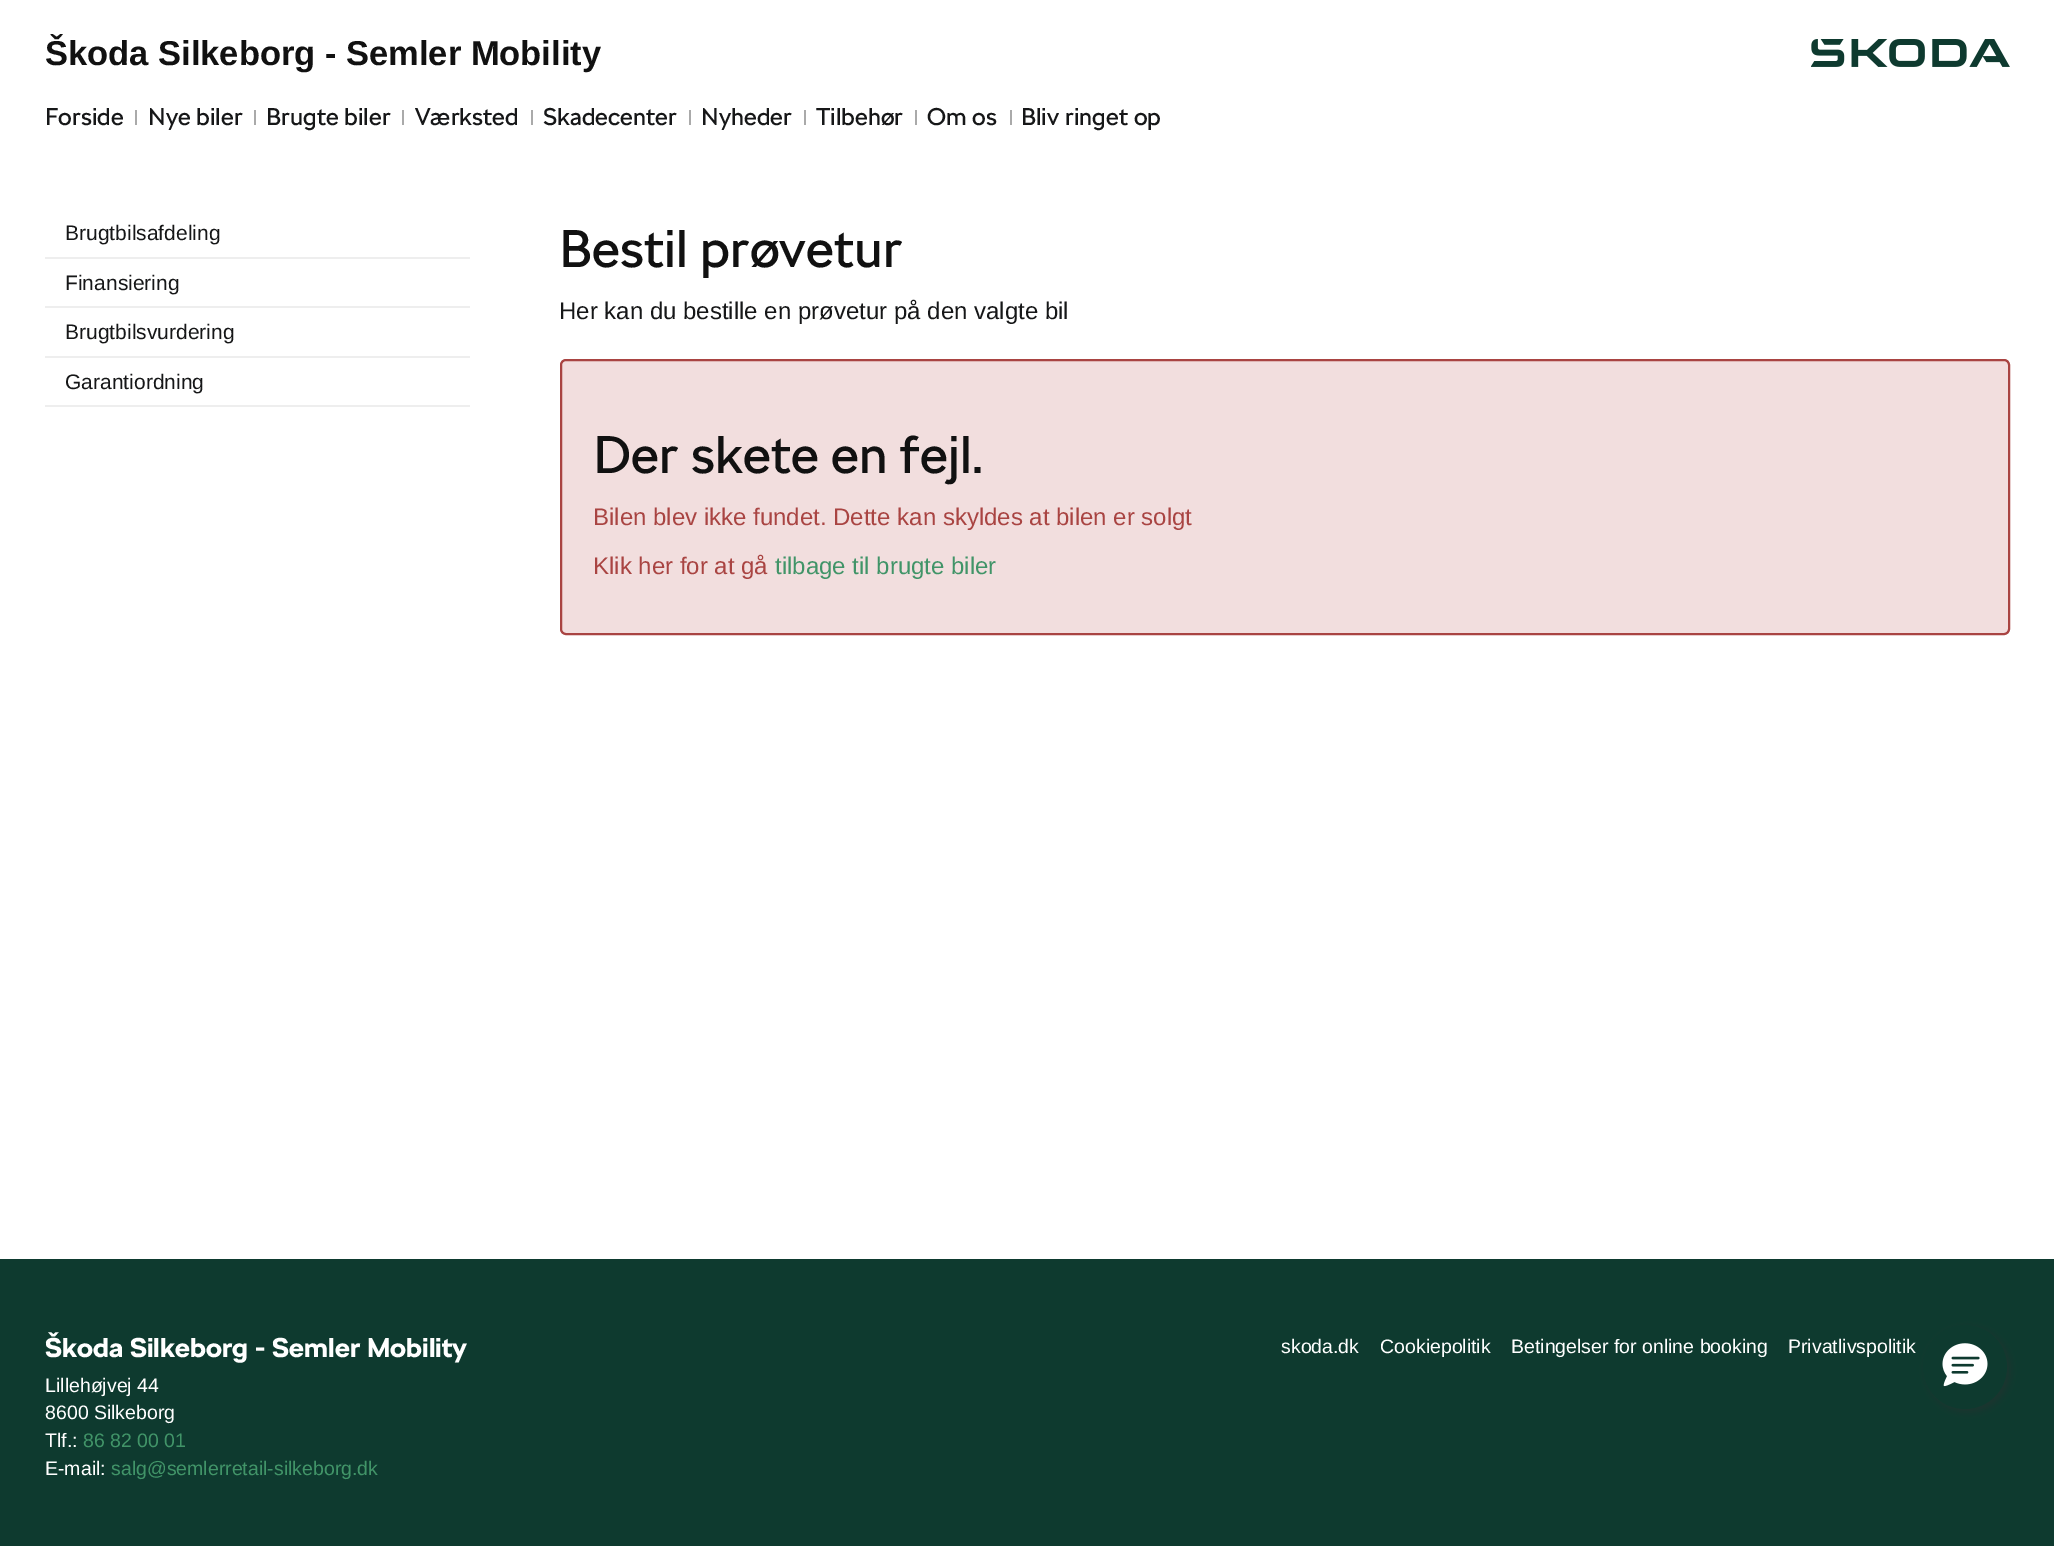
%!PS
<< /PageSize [2054 1546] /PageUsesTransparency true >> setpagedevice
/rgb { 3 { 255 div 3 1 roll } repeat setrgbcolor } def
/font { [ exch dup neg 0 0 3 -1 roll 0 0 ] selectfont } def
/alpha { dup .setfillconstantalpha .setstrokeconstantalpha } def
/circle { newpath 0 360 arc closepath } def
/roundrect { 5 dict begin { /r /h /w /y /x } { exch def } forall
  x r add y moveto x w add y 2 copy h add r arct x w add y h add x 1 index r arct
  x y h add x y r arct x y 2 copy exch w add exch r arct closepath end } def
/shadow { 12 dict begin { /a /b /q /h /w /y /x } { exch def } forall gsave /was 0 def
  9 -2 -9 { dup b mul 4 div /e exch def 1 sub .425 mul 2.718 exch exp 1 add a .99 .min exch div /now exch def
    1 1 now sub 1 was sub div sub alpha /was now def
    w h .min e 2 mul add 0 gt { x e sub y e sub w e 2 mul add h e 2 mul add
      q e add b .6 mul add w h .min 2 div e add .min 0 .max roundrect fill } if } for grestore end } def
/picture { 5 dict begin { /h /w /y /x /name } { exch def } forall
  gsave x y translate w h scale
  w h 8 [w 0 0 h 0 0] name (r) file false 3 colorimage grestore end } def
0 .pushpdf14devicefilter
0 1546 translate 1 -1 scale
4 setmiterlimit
255 255 255 rgb
0 0 2054 1546 rectfill
(img/1.rgb) 1811 39 199 28 picture
[
  [45 405 425 2 238 238 238]
  [45 257 425 2 238 238 238]
  [45 306 425 2 238 238 238]
  [45 356 425 2 238 238 238]
] { aload pop rgb rectfill } forall
242 222 222 rgb
561 360 1448 274 5 roundrect gsave fill grestore
169 68 66 rgb
2 setlinewidth
stroke
[
  [0 1259 2054 287 14 58 47]
  [135 110 2 15 170 170 170]
  [254 110 2 15 170 170 170]
  [402 110 2 15 170 170 170]
  [531 110 2 15 170 170 170]
  [689 110 2 15 170 170 170]
  [804 110 2 15 170 170 170]
  [915 110 2 15 170 170 170]
  [1010 110 2 15 170 170 170]
] { aload pop rgb rectfill } forall
45 45 45 rgb
1926 1328 84 84 42 4 0.5 shadow
14 58 47 rgb
1965 1367 42 circle fill
(img/2.rgb) 1942 1343 46 44 picture
/LiberationSans-Bold 34.5 font
17 17 17 rgb
45 65 moveto (Škoda Silkeborg - Semler Mobility) show
/LiberationSans-Regular 21 font
22 23 24 rgb
[
  [(Brugtbilsafdeling) 65 240]
  [(Finansiering) 65 290]
  [(Brugtbilsvurdering) 65 339]
  [(Garantiordning) 65 389]
] { aload pop moveto show } forall
/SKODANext-Regular 52.5 font
17 17 17 rgb
559 267 moveto (Bestil prøvetur) show
/LiberationSans-Regular 24 font
22 23 24 rgb
559 319 moveto (Her kan du bestille en prøvetur på den valgte bil) show
/SKODANext-Regular 52.5 font
17 17 17 rgb
593 473 moveto (Der skete en fejl.) show
/LiberationSans-Regular 24 font
169 68 66 rgb
593 525 moveto (Bilen blev ikke fundet. Dette kan skyldes at bilen er solgt) show
593 574 moveto (Klik her for at gå) show
65 148 104 rgb
775 574 moveto (tilbage til brugte biler) show
/SKODANext-Bold 27 font
255 255 255 rgb
45 1357 moveto (Škoda Silkeborg - Semler Mobility) show
/LiberationSans-Regular 19.5 font
[
  [(Lillehøjvej 44) 45 1392]
  [(8600 Silkeborg) 45 1419]
  [(Tlf.:) 45 1447]
] { aload pop moveto show } forall
65 148 104 rgb
83 1447 moveto (86 82 00 01) show
255 255 255 rgb
45 1475 moveto (E-mail:) show
65 148 104 rgb
111 1475 moveto (salg@semlerretail-silkeborg.dk) show
255 255 255 rgb
[
  [(skoda.dk) 1281 1353]
  [(Cookiepolitik) 1380 1353]
  [(Betingelser for online booking) 1511 1353]
  [(Privatlivspolitik) 1788 1353]
] { aload pop moveto show } forall
/SKODANext-Regular 24 font
22 23 24 rgb
[
  [(Forside) 45 125]
  [(Nye biler) 148 125]
  [(Brugte biler) 266 125]
  [(Værksted) 415 125]
  [(Skadecenter) 543 125]
  [(Nyheder) 701 125]
  [(Tilbehør) 816 125]
  [(Om os) 927 125]
  [(Bliv ringet op) 1021 125]
] { aload pop moveto show } forall
.poppdf14devicefilter showpage
